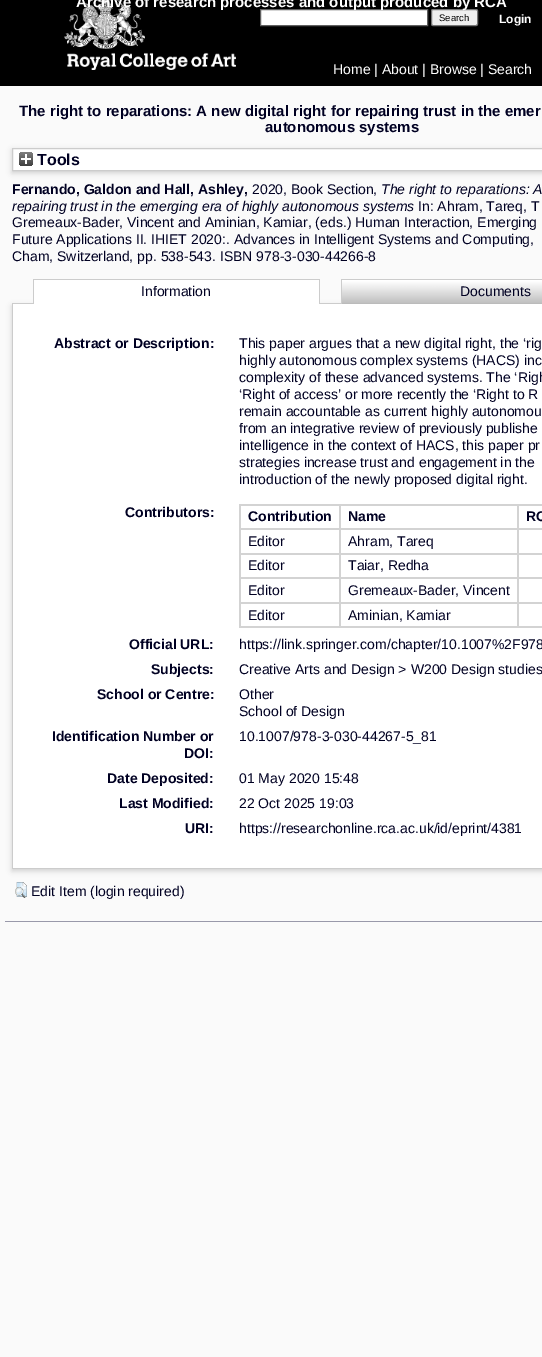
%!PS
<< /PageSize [542 1357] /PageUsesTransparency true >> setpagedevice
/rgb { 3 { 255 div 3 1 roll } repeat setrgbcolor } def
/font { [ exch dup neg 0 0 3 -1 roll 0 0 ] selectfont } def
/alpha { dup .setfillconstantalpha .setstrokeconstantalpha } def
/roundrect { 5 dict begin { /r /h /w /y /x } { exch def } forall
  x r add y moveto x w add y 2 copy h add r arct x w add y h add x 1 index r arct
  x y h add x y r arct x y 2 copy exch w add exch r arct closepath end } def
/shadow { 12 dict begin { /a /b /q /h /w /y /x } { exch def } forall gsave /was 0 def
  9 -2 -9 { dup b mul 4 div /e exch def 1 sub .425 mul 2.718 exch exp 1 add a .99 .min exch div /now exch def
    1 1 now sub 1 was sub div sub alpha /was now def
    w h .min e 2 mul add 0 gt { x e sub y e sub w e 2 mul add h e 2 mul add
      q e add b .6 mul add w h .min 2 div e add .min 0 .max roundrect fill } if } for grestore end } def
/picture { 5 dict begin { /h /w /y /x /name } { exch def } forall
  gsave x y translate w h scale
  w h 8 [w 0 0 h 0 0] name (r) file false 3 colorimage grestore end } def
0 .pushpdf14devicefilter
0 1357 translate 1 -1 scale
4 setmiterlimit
250 250 250 rgb
0 0 542 1357 rectfill
0 0 0 rgb
0 0 542 86 rectfill
(img/1.rgb) 64 0 172 70 picture
255 255 255 rgb
260.5 9.5 moveto 427.5 9.5 lineto 427.5 25.5 lineto 260.5 25.5 lineto closepath gsave fill grestore
96 96 96 rgb
stroke
239 239 239 rgb
431.5 9.5 46 16 1.5 roundrect gsave fill grestore
118 118 118 rgb
stroke
100 100 100 rgb
12 150 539 23 0 3 0.3 shadow
255 255 255 rgb
12.5 148.5 moveto 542.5 148.5 lineto 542.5 170.5 lineto 12.5 170.5 lineto closepath gsave fill grestore
204 204 204 rgb
stroke
(img/2.rgb) 19 152 14 14 picture
100 100 100 rgb
12 306 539 565 0 3 0.3 shadow
204 204 204 rgb
12 303 329 1 rectfill
255 255 255 rgb
34 281 285 23 rectfill
(img/3.rgb) 34 280 285 5 picture
[
  [33 279 287 1 204 204 204]
  [319 279 1 25 204 204 204]
  [33 279 1 25 204 204 204]
  [342 281 200 23 187 187 187]
] { aload pop rgb rectfill } forall
(img/4.rgb) 342 280 200 23 picture
[
  [341 279 201 1 204 204 204]
  [341 279 1 25 204 204 204]
  [13 304 529 564 255 255 255]
  [12 868 530 1 204 204 204]
  [12 304 1 565 204 204 204]
  [517 504 25 2 211 211 211]
  [517 528 25 2 211 211 211]
  [517 553 25 2 211 211 211]
  [517 577 25 2 211 211 211]
  [517 602 25 2 211 211 211]
  [517 626 25 2 211 211 211]
  [517 602 2 26 211 211 211]
  [339 602 180 2 211 211 211]
  [517 577 2 27 211 211 211]
  [339 577 180 2 211 211 211]
  [517 553 2 26 211 211 211]
  [339 553 180 2 211 211 211]
  [517 528 2 27 211 211 211]
  [339 528 180 2 211 211 211]
  [517 504 2 26 211 211 211]
  [339 504 180 2 211 211 211]
  [339 626 180 2 211 211 211]
  [339 602 2 26 211 211 211]
  [239 602 102 2 211 211 211]
  [339 577 2 27 211 211 211]
  [239 577 102 2 211 211 211]
  [339 553 2 26 211 211 211]
  [239 553 102 2 211 211 211]
  [339 528 2 27 211 211 211]
  [239 528 102 2 211 211 211]
  [339 504 2 26 211 211 211]
  [239 504 102 2 211 211 211]
  [239 626 102 2 211 211 211]
  [239 602 2 26 211 211 211]
  [239 577 2 27 211 211 211]
  [239 553 2 26 211 211 211]
  [239 528 2 27 211 211 211]
  [239 504 2 26 211 211 211]
] { aload pop rgb rectfill } forall
(img/5.rgb) 15 882 12 16 picture
153 153 170 rgb
5 921 537 1 rectfill
/LiberationSans-Bold 15 font
255 255 255 rgb
76 7 moveto (Archive of research processes and output produced by RCA) show
/LiberationSans-Regular 9.5 font
0 0 0 rgb
439 21 moveto (Search) show
/LiberationSans-Bold 12 font
255 255 255 rgb
499 23 moveto (Login) show
/LiberationSans-Regular 14 font
333 74 moveto (Home | About | Browse | Search) show
/LiberationSans-Bold 15 font
0 0 34 rgb
19 116 moveto (The right to reparations: A new digital right for repairing trust in the emer) show
265 132 moveto (autonomous systems) show
/LiberationSans-Bold 16 font
37 165 moveto (Tools) show
/LiberationSans-Bold 14 font
12 194 moveto (Fernando, Galdon and Hall, Ashley,) show
/LiberationSans-Regular 14 font
252 194 moveto (2020, Book Section,) show
/LiberationSans-Italic 14 font
381 194 moveto (The right to reparations: A) show
12 211 moveto (repairing trust in the emerging era of highly autonomous systems) show
/LiberationSans-Regular 14 font
[
  [(In: Ahram, Tareq, T) 418 211]
  [(Gremeaux-Bader, Vincent and Aminian, Kamiar, \(eds.\) Human Interaction, Emerging) 12 227]
  [(Future Applications II. IHIET 2020:. Advances in Intelligent Systems and Computing,) 12 244]
  [(Cham, Switzerland, pp. 538-543. ISBN 978-3-030-44266-8) 12 261]
  [(Information) 141 296]
  [(Documents) 460 296]
] { aload pop moveto show } forall
/LiberationSans-Bold 14 font
54 348 moveto (Abstract or Description:) show
/LiberationSans-Regular 14 font
[
  [(This paper argues that a new digital right, the ‘rig) 239 348]
  [(highly autonomous complex systems \(HACS\) inc) 239 365]
  [(complexity of these advanced systems. The ‘Righ) 239 382]
  [(‘Right of access’ or more recently the ‘Right to R) 239 399]
  [(remain accountable as current highly autonomou) 239 416]
  [(from an integrative review of previously publishe) 239 433]
  [(intelligence in the context of HACS, this paper pr) 239 450]
  [(strategies increase trust and engagement in the) 239 467]
  [(introduction of the newly proposed digital right.) 239 484]
] { aload pop moveto show } forall
/LiberationSans-Bold 14 font
[
  [(Contributors:) 125 517]
  [(Contribution) 248 521]
  [(Name) 348 521]
  [(RC) 526 521]
] { aload pop moveto show } forall
/LiberationSans-Regular 14 font
[
  [(Editor) 248 546]
  [(Ahram, Tareq) 348 546]
  [(Editor) 248 570]
  [(Taiar, Redha) 348 570]
  [(Editor) 248 595]
  [(Gremeaux-Bader, Vincent) 348 595]
  [(Editor) 248 620]
  [(Aminian, Kamiar) 348 620]
] { aload pop moveto show } forall
/LiberationSans-Bold 14 font
129 649 moveto (Official URL:) show
/LiberationSans-Regular 14 font
239 649 moveto (https://link.springer.com/chapter/10.1007%2F978) show
/LiberationSans-Bold 14 font
151 674 moveto (Subjects:) show
/LiberationSans-Regular 14 font
239 674 moveto (Creative Arts and Design > W200 Design studies) show
/LiberationSans-Bold 14 font
97 699 moveto (School or Centre:) show
/LiberationSans-Regular 14 font
239 699 moveto (Other) show
239 716 moveto (School of Design) show
/LiberationSans-Bold 14 font
52 741 moveto (Identification Number or) show
184 758 moveto (DOI:) show
/LiberationSans-Regular 14 font
239 741 moveto (10.1007/978-3-030-44267-5_81) show
/LiberationSans-Bold 14 font
107 783 moveto (Date Deposited:) show
/LiberationSans-Regular 14 font
239 783 moveto (01 May 2020 15:48) show
/LiberationSans-Bold 14 font
119 808 moveto (Last Modified:) show
/LiberationSans-Regular 14 font
239 808 moveto (22 Oct 2025 19:03) show
/LiberationSans-Bold 14 font
185 833 moveto (URI:) show
/LiberationSans-Regular 14 font
239 833 moveto (https://researchonline.rca.ac.uk/id/eprint/4381) show
31 896 moveto (Edit Item \(login required\)) show
.poppdf14devicefilter showpage
